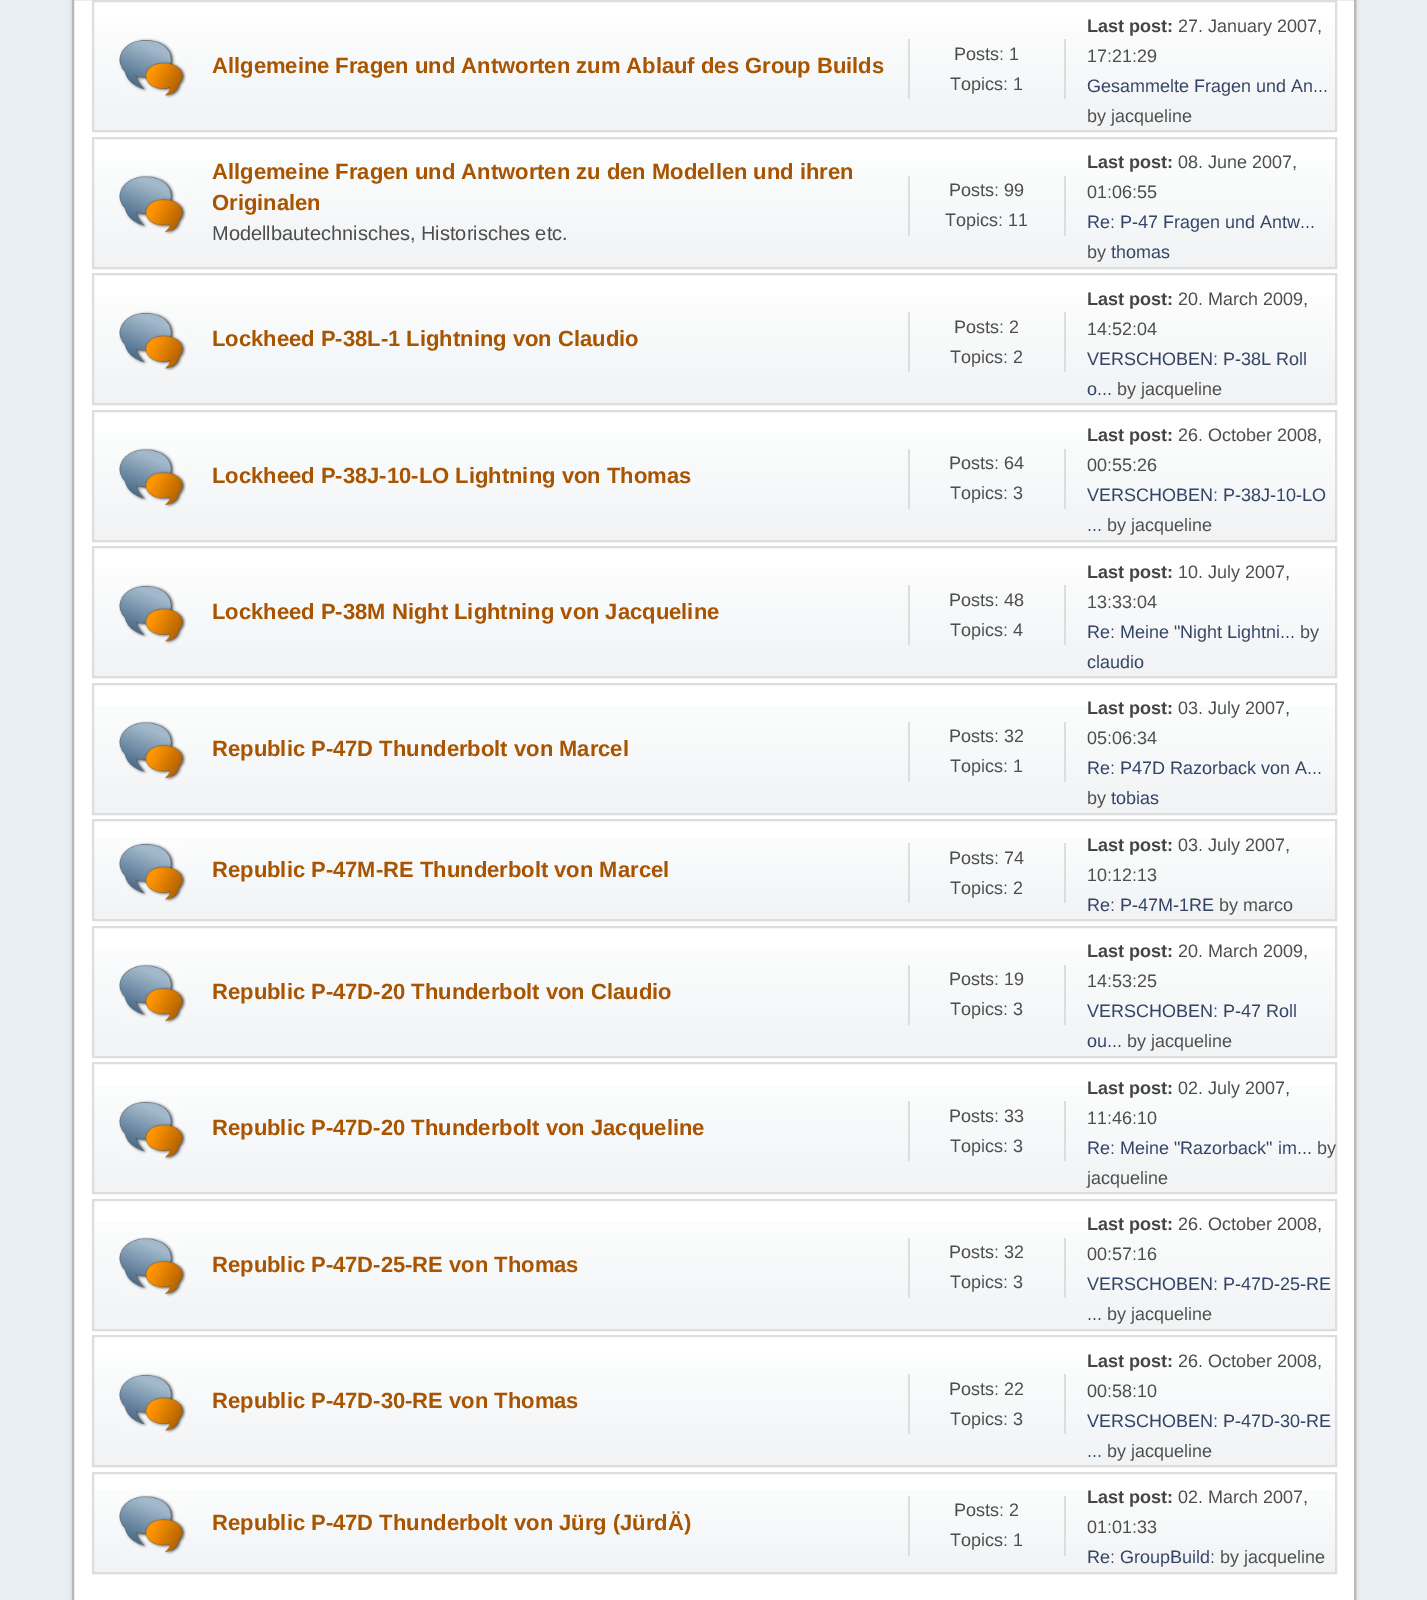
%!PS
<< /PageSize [1427 1600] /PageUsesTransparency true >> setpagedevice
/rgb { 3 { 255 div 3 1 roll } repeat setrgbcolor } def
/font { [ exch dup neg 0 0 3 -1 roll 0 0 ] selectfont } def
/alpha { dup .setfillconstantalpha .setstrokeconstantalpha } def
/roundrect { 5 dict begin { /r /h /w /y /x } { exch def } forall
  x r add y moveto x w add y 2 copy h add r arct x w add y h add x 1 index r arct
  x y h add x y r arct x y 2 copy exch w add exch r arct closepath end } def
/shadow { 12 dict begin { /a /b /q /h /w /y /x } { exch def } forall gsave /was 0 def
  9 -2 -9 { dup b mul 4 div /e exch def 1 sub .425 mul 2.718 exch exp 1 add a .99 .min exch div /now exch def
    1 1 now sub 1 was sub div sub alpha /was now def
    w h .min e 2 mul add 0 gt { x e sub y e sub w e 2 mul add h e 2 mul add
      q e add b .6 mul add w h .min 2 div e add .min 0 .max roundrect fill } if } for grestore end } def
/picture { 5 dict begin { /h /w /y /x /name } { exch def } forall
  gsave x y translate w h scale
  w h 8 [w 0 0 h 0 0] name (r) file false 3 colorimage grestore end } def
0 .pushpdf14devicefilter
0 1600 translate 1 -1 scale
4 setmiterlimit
233 238 242 rgb
0 0 1427 1600 rectfill
0 0 0 rgb
72 -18 1284 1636 12 2 0.14 shadow
255 255 255 rgb
73 -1 moveto 1355 -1 lineto 1355 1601 lineto 73 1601 lineto closepath gsave fill grestore
184 184 184 rgb
2 setlinewidth
stroke
gsave 94 23 moveto 1335 23 lineto 1335 130 lineto 94 130 lineto closepath clip newpath
<< /ShadingType 2 /ColorSpace /DeviceRGB /Coords [714 1.5 714 131] /Extend [true true] /Function << /FunctionType 3 /Domain [0 1] /Functions [<< /FunctionType 2 /Domain [0 1] /C0 [1 1 1] /C1 [0.945 0.953 0.961] /N 1 >> << /FunctionType 2 /Domain [0 1] /C0 [0.945 0.953 0.961] /C1 [0.945 0.953 0.961] /N 1 >>] /Bounds [0.95] /Encode [0 1 0 1] >> >> shfill grestore
221 221 221 rgb
93 1 1243 130 rectstroke
(img/1.rgb) 119 38 67 60 picture
1064 39 2 60 rectfill
908 39 2 60 rectfill
gsave 94 160 moveto 1335 160 lineto 1335 267 lineto 94 267 lineto closepath clip newpath
<< /ShadingType 2 /ColorSpace /DeviceRGB /Coords [714 138 714 267] /Extend [true true] /Function << /FunctionType 3 /Domain [0 1] /Functions [<< /FunctionType 2 /Domain [0 1] /C0 [1 1 1] /C1 [0.945 0.953 0.961] /N 1 >> << /FunctionType 2 /Domain [0 1] /C0 [0.945 0.953 0.961] /C1 [0.945 0.953 0.961] /N 1 >>] /Bounds [0.95] /Encode [0 1 0 1] >> >> shfill grestore
93 138 1243 130 rectstroke
(img/2.rgb) 119 175 67 60 picture
1064 176 2 60 rectfill
908 176 2 60 rectfill
gsave 94 296 moveto 1335 296 lineto 1335 403 lineto 94 403 lineto closepath clip newpath
<< /ShadingType 2 /ColorSpace /DeviceRGB /Coords [714 274 714 404] /Extend [true true] /Function << /FunctionType 3 /Domain [0 1] /Functions [<< /FunctionType 2 /Domain [0 1] /C0 [1 1 1] /C1 [0.945 0.953 0.961] /N 1 >> << /FunctionType 2 /Domain [0 1] /C0 [0.945 0.953 0.961] /C1 [0.945 0.953 0.961] /N 1 >>] /Bounds [0.95] /Encode [0 1 0 1] >> >> shfill grestore
93 274 1243 130 rectstroke
(img/3.rgb) 119 311 67 60 picture
1064 312 2 60 rectfill
908 312 2 60 rectfill
gsave 94 433 moveto 1335 433 lineto 1335 540 lineto 94 540 lineto closepath clip newpath
<< /ShadingType 2 /ColorSpace /DeviceRGB /Coords [714 411 714 540] /Extend [true true] /Function << /FunctionType 3 /Domain [0 1] /Functions [<< /FunctionType 2 /Domain [0 1] /C0 [1 1 1] /C1 [0.945 0.953 0.961] /N 1 >> << /FunctionType 2 /Domain [0 1] /C0 [0.945 0.953 0.961] /C1 [0.945 0.953 0.961] /N 1 >>] /Bounds [0.95] /Encode [0 1 0 1] >> >> shfill grestore
93 411 1243 130 rectstroke
(img/2.rgb) 119 448 67 60 picture
1064 449 2 60 rectfill
908 449 2 60 rectfill
gsave 94 569 moveto 1335 569 lineto 1335 676 lineto 94 676 lineto closepath clip newpath
<< /ShadingType 2 /ColorSpace /DeviceRGB /Coords [714 547 714 677] /Extend [true true] /Function << /FunctionType 3 /Domain [0 1] /Functions [<< /FunctionType 2 /Domain [0 1] /C0 [1 1 1] /C1 [0.945 0.953 0.961] /N 1 >> << /FunctionType 2 /Domain [0 1] /C0 [0.945 0.953 0.961] /C1 [0.945 0.953 0.961] /N 1 >>] /Bounds [0.95] /Encode [0 1 0 1] >> >> shfill grestore
93 547 1243 130 rectstroke
(img/3.rgb) 119 584 67 60 picture
1064 585 2 60 rectfill
908 585 2 60 rectfill
gsave 94 706 moveto 1335 706 lineto 1335 813 lineto 94 813 lineto closepath clip newpath
<< /ShadingType 2 /ColorSpace /DeviceRGB /Coords [714 684 714 813] /Extend [true true] /Function << /FunctionType 3 /Domain [0 1] /Functions [<< /FunctionType 2 /Domain [0 1] /C0 [1 1 1] /C1 [0.945 0.953 0.961] /N 1 >> << /FunctionType 2 /Domain [0 1] /C0 [0.945 0.953 0.961] /C1 [0.945 0.953 0.961] /N 1 >>] /Bounds [0.95] /Encode [0 1 0 1] >> >> shfill grestore
93 684 1243 130 rectstroke
(img/2.rgb) 119 721 67 60 picture
1064 722 2 60 rectfill
908 722 2 60 rectfill
gsave 94 838 moveto 1335 838 lineto 1335 919 lineto 94 919 lineto closepath clip newpath
<< /ShadingType 2 /ColorSpace /DeviceRGB /Coords [714 821 714 920] /Extend [true true] /Function << /FunctionType 3 /Domain [0 1] /Functions [<< /FunctionType 2 /Domain [0 1] /C0 [1 1 1] /C1 [0.945 0.953 0.961] /N 1 >> << /FunctionType 2 /Domain [0 1] /C0 [0.945 0.953 0.961] /C1 [0.945 0.953 0.961] /N 1 >>] /Bounds [0.95] /Encode [0 1 0 1] >> >> shfill grestore
93 820 1243 100 rectstroke
(img/4.rgb) 119 842 67 60 picture
1064 843 2 60 rectfill
908 843 2 60 rectfill
gsave 94 949 moveto 1335 949 lineto 1335 1056 lineto 94 1056 lineto closepath clip newpath
<< /ShadingType 2 /ColorSpace /DeviceRGB /Coords [714 927 714 1056] /Extend [true true] /Function << /FunctionType 3 /Domain [0 1] /Functions [<< /FunctionType 2 /Domain [0 1] /C0 [1 1 1] /C1 [0.945 0.953 0.961] /N 1 >> << /FunctionType 2 /Domain [0 1] /C0 [0.945 0.953 0.961] /C1 [0.945 0.953 0.961] /N 1 >>] /Bounds [0.95] /Encode [0 1 0 1] >> >> shfill grestore
93 927 1243 130 rectstroke
(img/2.rgb) 119 964 67 60 picture
1064 965 2 60 rectfill
908 965 2 60 rectfill
gsave 94 1086 moveto 1335 1086 lineto 1335 1192 lineto 94 1192 lineto closepath clip newpath
<< /ShadingType 2 /ColorSpace /DeviceRGB /Coords [714 1064 714 1193] /Extend [true true] /Function << /FunctionType 3 /Domain [0 1] /Functions [<< /FunctionType 2 /Domain [0 1] /C0 [1 1 1] /C1 [0.945 0.953 0.961] /N 1 >> << /FunctionType 2 /Domain [0 1] /C0 [0.945 0.953 0.961] /C1 [0.945 0.953 0.961] /N 1 >>] /Bounds [0.95] /Encode [0 1 0 1] >> >> shfill grestore
93 1063 1243 130 rectstroke
(img/5.rgb) 119 1100 67 60 picture
1064 1101 2 60 rectfill
908 1101 2 60 rectfill
gsave 94 1222 moveto 1335 1222 lineto 1335 1329 lineto 94 1329 lineto closepath clip newpath
<< /ShadingType 2 /ColorSpace /DeviceRGB /Coords [714 1200 714 1329] /Extend [true true] /Function << /FunctionType 3 /Domain [0 1] /Functions [<< /FunctionType 2 /Domain [0 1] /C0 [1 1 1] /C1 [0.945 0.953 0.961] /N 1 >> << /FunctionType 2 /Domain [0 1] /C0 [0.945 0.953 0.961] /C1 [0.945 0.953 0.961] /N 1 >>] /Bounds [0.95] /Encode [0 1 0 1] >> >> shfill grestore
93 1200 1243 130 rectstroke
(img/2.rgb) 119 1237 67 60 picture
1064 1238 2 60 rectfill
908 1238 2 60 rectfill
gsave 94 1359 moveto 1335 1359 lineto 1335 1465 lineto 94 1465 lineto closepath clip newpath
<< /ShadingType 2 /ColorSpace /DeviceRGB /Coords [714 1337 714 1466] /Extend [true true] /Function << /FunctionType 3 /Domain [0 1] /Functions [<< /FunctionType 2 /Domain [0 1] /C0 [1 1 1] /C1 [0.945 0.953 0.961] /N 1 >> << /FunctionType 2 /Domain [0 1] /C0 [0.945 0.953 0.961] /C1 [0.945 0.953 0.961] /N 1 >>] /Bounds [0.95] /Encode [0 1 0 1] >> >> shfill grestore
93 1336 1243 130 rectstroke
(img/5.rgb) 119 1373 67 60 picture
1064 1374 2 60 rectfill
908 1374 2 60 rectfill
gsave 94 1490 moveto 1335 1490 lineto 1335 1572 lineto 94 1572 lineto closepath clip newpath
<< /ShadingType 2 /ColorSpace /DeviceRGB /Coords [714 1473 714 1572] /Extend [true true] /Function << /FunctionType 3 /Domain [0 1] /Functions [<< /FunctionType 2 /Domain [0 1] /C0 [1 1 1] /C1 [0.945 0.953 0.961] /N 1 >> << /FunctionType 2 /Domain [0 1] /C0 [0.945 0.953 0.961] /C1 [0.945 0.953 0.961] /N 1 >>] /Bounds [0.95] /Encode [0 1 0 1] >> >> shfill grestore
93 1473 1243 100 rectstroke
(img/6.rgb) 119 1495 67 60 picture
1064 1496 2 60 rectfill
908 1496 2 60 rectfill
/LiberationSans-Bold 22 font
168 84 0 rgb
212 73 moveto (Allgemeine Fragen und Antworten zum Ablauf des Group Builds) show
/LiberationSans-Regular 18 font
77 77 77 rgb
954 60 moveto (Posts: 1) show
950 90 moveto (Topics: 1) show
/LiberationSans-Bold 18 font
68 68 68 rgb
1087 32 moveto (Last post:) show
/LiberationSans-Regular 18 font
77 77 77 rgb
1178 32 moveto (27. January 2007,) show
1087 62 moveto (17:21:29) show
51 68 102 rgb
1087 92 moveto (Gesammelte Fragen und An...) show
77 77 77 rgb
1087 122 moveto (by jacqueline) show
/LiberationSans-Bold 22 font
168 84 0 rgb
212 179 moveto (Allgemeine Fragen und Antworten zu den Modellen und ihren) show
212 210 moveto (Originalen) show
/LiberationSans-Regular 20 font
77 77 77 rgb
212 240 moveto (Modellbautechnisches, Historisches etc.) show
/LiberationSans-Regular 18 font
949 196 moveto (Posts: 99) show
945 226 moveto (Topics: 11) show
/LiberationSans-Bold 18 font
68 68 68 rgb
1087 168 moveto (Last post:) show
/LiberationSans-Regular 18 font
77 77 77 rgb
1178 168 moveto (08. June 2007,) show
1087 198 moveto (01:06:55) show
51 68 102 rgb
1087 228 moveto (Re: P-47 Fragen und Antw...) show
77 77 77 rgb
1087 258 moveto (by) show
51 68 102 rgb
1111 258 moveto (thomas) show
/LiberationSans-Bold 22 font
168 84 0 rgb
212 346 moveto (Lockheed P-38L-1 Lightning von Claudio) show
/LiberationSans-Regular 18 font
77 77 77 rgb
954 333 moveto (Posts: 2) show
950 363 moveto (Topics: 2) show
/LiberationSans-Bold 18 font
68 68 68 rgb
1087 305 moveto (Last post:) show
/LiberationSans-Regular 18 font
77 77 77 rgb
1178 305 moveto (20. March 2009,) show
1087 335 moveto (14:52:04) show
51 68 102 rgb
1087 365 moveto (VERSCHOBEN: P-38L Roll) show
1087 395 moveto (o...) show
77 77 77 rgb
1117 395 moveto (by jacqueline) show
/LiberationSans-Bold 22 font
168 84 0 rgb
212 483 moveto (Lockheed P-38J-10-LO Lightning von Thomas) show
/LiberationSans-Regular 18 font
77 77 77 rgb
949 469 moveto (Posts: 64) show
950 499 moveto (Topics: 3) show
/LiberationSans-Bold 18 font
68 68 68 rgb
1087 441 moveto (Last post:) show
/LiberationSans-Regular 18 font
77 77 77 rgb
1178 441 moveto (26. October 2008,) show
1087 471 moveto (00:55:26) show
51 68 102 rgb
1087 501 moveto (VERSCHOBEN: P-38J-10-LO) show
1087 531 moveto (...) show
77 77 77 rgb
1107 531 moveto (by jacqueline) show
/LiberationSans-Bold 22 font
168 84 0 rgb
212 619 moveto (Lockheed P-38M Night Lightning von Jacqueline) show
/LiberationSans-Regular 18 font
77 77 77 rgb
949 606 moveto (Posts: 48) show
950 636 moveto (Topics: 4) show
/LiberationSans-Bold 18 font
68 68 68 rgb
1087 578 moveto (Last post:) show
/LiberationSans-Regular 18 font
77 77 77 rgb
1178 578 moveto (10. July 2007,) show
1087 608 moveto (13:33:04) show
51 68 102 rgb
1087 638 moveto (Re: Meine "Night Lightni...) show
77 77 77 rgb
1300 638 moveto (by) show
51 68 102 rgb
1087 668 moveto (claudio) show
/LiberationSans-Bold 22 font
168 84 0 rgb
212 756 moveto (Republic P-47D Thunderbolt von Marcel) show
/LiberationSans-Regular 18 font
77 77 77 rgb
949 742 moveto (Posts: 32) show
950 772 moveto (Topics: 1) show
/LiberationSans-Bold 18 font
68 68 68 rgb
1087 714 moveto (Last post:) show
/LiberationSans-Regular 18 font
77 77 77 rgb
1178 714 moveto (03. July 2007,) show
1087 744 moveto (05:06:34) show
51 68 102 rgb
1087 774 moveto (Re: P47D Razorback von A...) show
77 77 77 rgb
1087 804 moveto (by) show
51 68 102 rgb
1111 804 moveto (tobias) show
/LiberationSans-Bold 22 font
168 84 0 rgb
212 877 moveto (Republic P-47M-RE Thunderbolt von Marcel) show
/LiberationSans-Regular 18 font
77 77 77 rgb
949 864 moveto (Posts: 74) show
950 894 moveto (Topics: 2) show
/LiberationSans-Bold 18 font
68 68 68 rgb
1087 851 moveto (Last post:) show
/LiberationSans-Regular 18 font
77 77 77 rgb
1178 851 moveto (03. July 2007,) show
1087 881 moveto (10:12:13) show
51 68 102 rgb
1087 911 moveto (Re: P-47M-1RE) show
77 77 77 rgb
1219 911 moveto (by marco) show
/LiberationSans-Bold 22 font
168 84 0 rgb
212 999 moveto (Republic P-47D-20 Thunderbolt von Claudio) show
/LiberationSans-Regular 18 font
77 77 77 rgb
949 985 moveto (Posts: 19) show
950 1015 moveto (Topics: 3) show
/LiberationSans-Bold 18 font
68 68 68 rgb
1087 957 moveto (Last post:) show
/LiberationSans-Regular 18 font
77 77 77 rgb
1178 957 moveto (20. March 2009,) show
1087 987 moveto (14:53:25) show
51 68 102 rgb
1087 1017 moveto (VERSCHOBEN: P-47 Roll) show
1087 1047 moveto (ou...) show
77 77 77 rgb
1127 1047 moveto (by jacqueline) show
/LiberationSans-Bold 22 font
168 84 0 rgb
212 1135 moveto (Republic P-47D-20 Thunderbolt von Jacqueline) show
/LiberationSans-Regular 18 font
77 77 77 rgb
949 1122 moveto (Posts: 33) show
950 1152 moveto (Topics: 3) show
/LiberationSans-Bold 18 font
68 68 68 rgb
1087 1094 moveto (Last post:) show
/LiberationSans-Regular 18 font
77 77 77 rgb
1178 1094 moveto (02. July 2007,) show
1087 1124 moveto (11:46:10) show
51 68 102 rgb
1087 1154 moveto (Re: Meine "Razorback" im...) show
77 77 77 rgb
1317 1154 moveto (by) show
1087 1184 moveto (jacqueline) show
/LiberationSans-Bold 22 font
168 84 0 rgb
212 1272 moveto (Republic P-47D-25-RE von Thomas) show
/LiberationSans-Regular 18 font
77 77 77 rgb
949 1258 moveto (Posts: 32) show
950 1288 moveto (Topics: 3) show
/LiberationSans-Bold 18 font
68 68 68 rgb
1087 1230 moveto (Last post:) show
/LiberationSans-Regular 18 font
77 77 77 rgb
1178 1230 moveto (26. October 2008,) show
1087 1260 moveto (00:57:16) show
51 68 102 rgb
1087 1290 moveto (VERSCHOBEN: P-47D-25-RE) show
1087 1320 moveto (...) show
77 77 77 rgb
1107 1320 moveto (by jacqueline) show
/LiberationSans-Bold 22 font
168 84 0 rgb
212 1408 moveto (Republic P-47D-30-RE von Thomas) show
/LiberationSans-Regular 18 font
77 77 77 rgb
949 1395 moveto (Posts: 22) show
950 1425 moveto (Topics: 3) show
/LiberationSans-Bold 18 font
68 68 68 rgb
1087 1367 moveto (Last post:) show
/LiberationSans-Regular 18 font
77 77 77 rgb
1178 1367 moveto (26. October 2008,) show
1087 1397 moveto (00:58:10) show
51 68 102 rgb
1087 1427 moveto (VERSCHOBEN: P-47D-30-RE) show
1087 1457 moveto (...) show
77 77 77 rgb
1107 1457 moveto (by jacqueline) show
/LiberationSans-Bold 22 font
168 84 0 rgb
212 1530 moveto (Republic P-47D Thunderbolt von Jürg \(JürdÄ\)) show
/LiberationSans-Regular 18 font
77 77 77 rgb
954 1516 moveto (Posts: 2) show
950 1546 moveto (Topics: 1) show
/LiberationSans-Bold 18 font
68 68 68 rgb
1087 1503 moveto (Last post:) show
/LiberationSans-Regular 18 font
77 77 77 rgb
1178 1503 moveto (02. March 2007,) show
1087 1533 moveto (01:01:33) show
51 68 102 rgb
1087 1563 moveto (Re: GroupBuild:) show
77 77 77 rgb
1220 1563 moveto (by jacqueline) show
.poppdf14devicefilter showpage
